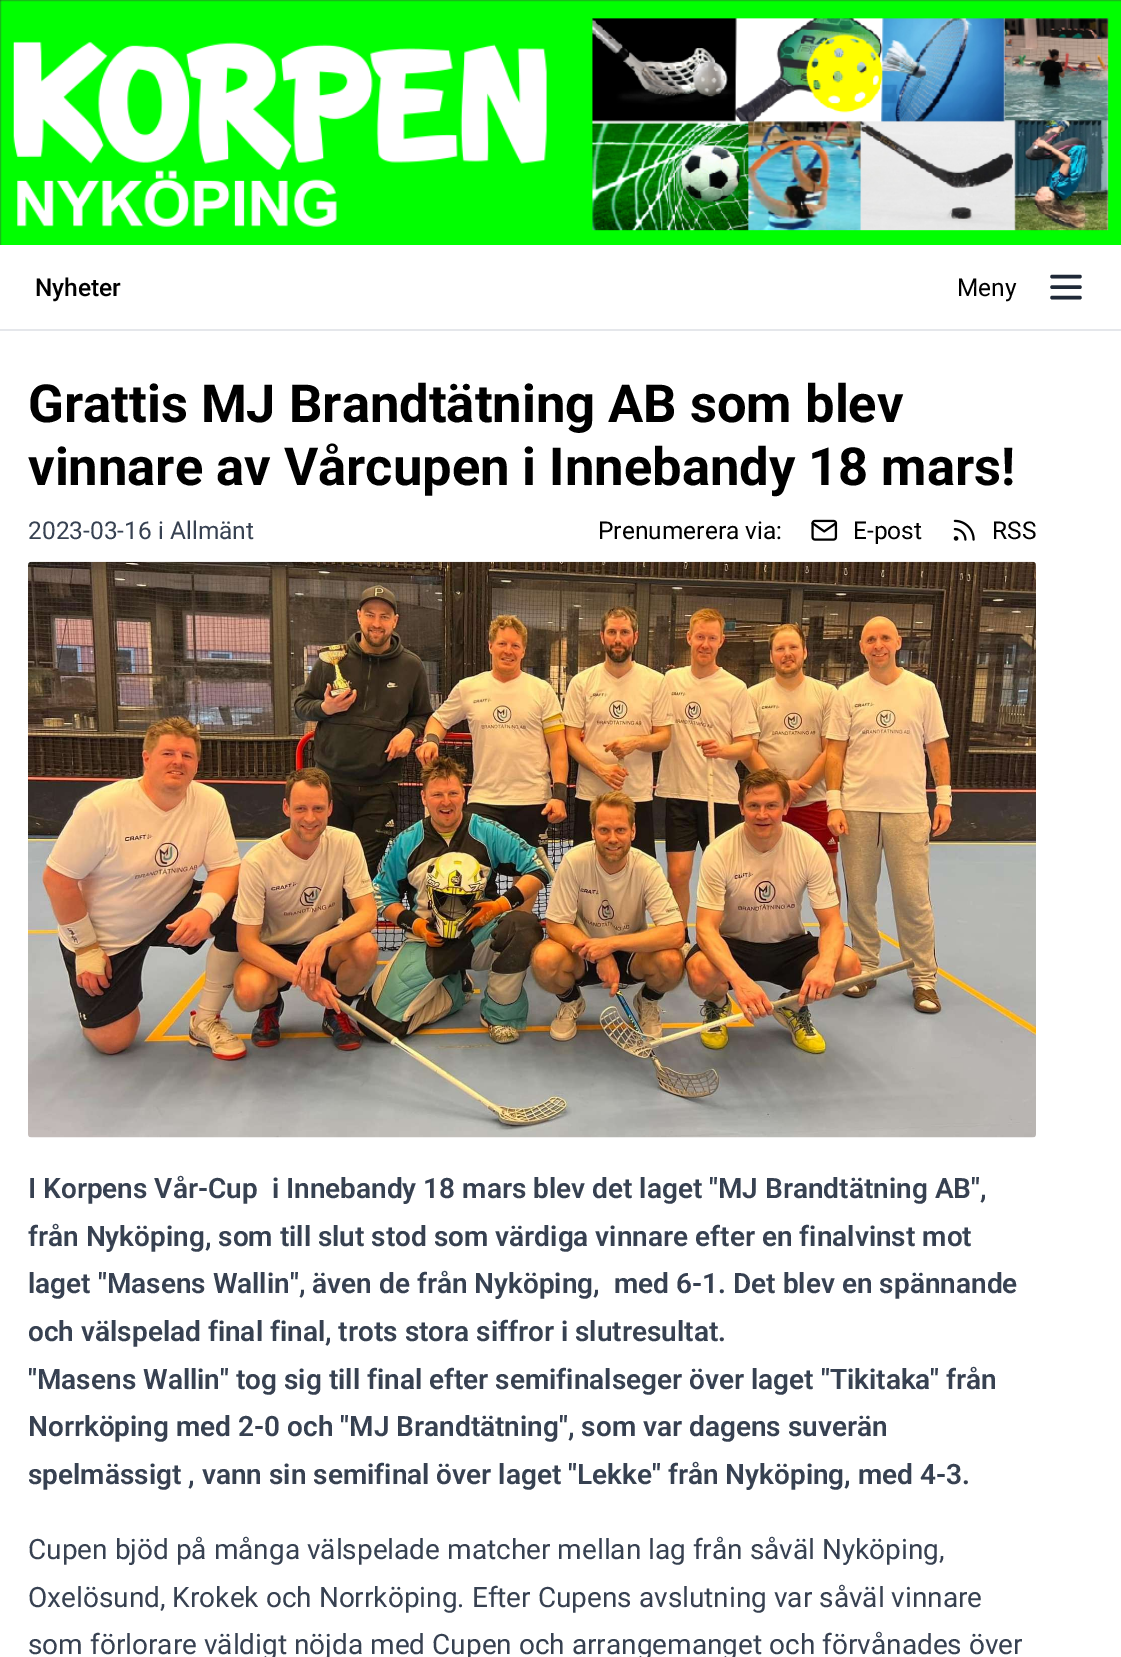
%!PS
<< /PageSize [1121 1657] >> setpagedevice
/rgb { 3 { 255 div 3 1 roll } repeat setrgbcolor } def
/font { [ exch dup neg 0 0 3 -1 roll 0 0 ] selectfont } def
/picture { 5 dict begin { /h /w /y /x /name } { exch def } forall
  gsave x y translate w h scale
  w h 8 [w 0 0 h 0 0] name (r) file false 3 colorimage grestore end } def
0 1657 translate 1 -1 scale
4 setmiterlimit
255 255 255 rgb
0 0 1121 1657 rectfill
(img/1.rgb) 0 0 1121 245 picture
229 231 235 rgb
0 329 1121 2 rectfill
31 41 55 rgb
3.5 setlinewidth
1 setlinecap
1 setlinejoin
1052 276.5 moveto 1080 276.5 lineto 1052 287 moveto 1080 287 lineto 1052 297.5 moveto 1080 297.5 lineto stroke
(img/2.rgb) 811 519 27 22 picture
(img/3.rgb) 953 519 22 22 picture
(img/4.rgb) 28 561 1008 577 picture
/Roboto-Medium 24.5 font
0 0 0 rgb
35 296 moveto (Nyheter) show
/Roboto-Regular 24.5 font
957 296 moveto (Meny) show
/Roboto-Bold 52.5 font
28 422 moveto (Grattis MJ Brandtätning AB som blev) show
28 485 moveto (vinnare av Vårcupen i Innebandy 18 mars!) show
/Roboto-Regular 24.5 font
55 65 81 rgb
28 539 moveto (2023-03-16 i Allmänt) show
0 0 0 rgb
[
  [(Prenumerera via:) 598 539]
  [(E-post) 853 539]
  [(RSS) 992 539]
] { aload pop moveto show } forall
/Roboto-SemiBold 28 font
55 65 81 rgb
[
  [(I Korpens Vår-Cup  i Innebandy 18 mars blev det laget "MJ Brandtätning AB",) 28 1198]
  [(från Nyköping, som till slut stod som värdiga vinnare efter en finalvinst mot) 28 1246]
  [(laget "Masens Wallin", även de från Nyköping,  med 6-1. Det blev en spännande) 28 1293]
  [(och välspelad final final, trots stora siffror i slutresultat.) 28 1341]
  [("Masens Wallin" tog sig till final efter semifinalseger över laget "Tikitaka" från) 28 1389]
  [(Norrköping med 2-0 och "MJ Brandtätning", som var dagens suverän) 28 1436]
  [(spelmässigt , vann sin semifinal över laget "Lekke" från Nyköping, med 4-3.) 28 1484]
] { aload pop moveto show } forall
/Roboto-Regular 28 font
[
  [(Cupen bjöd på många välspelade matcher mellan lag från såväl Nyköping,) 28 1559]
  [(Oxelösund, Krokek och Norrköping. Efter Cupens avslutning var såväl vinnare) 28 1607]
  [(som förlorare väldigt nöjda med Cupen och arrangemanget och förvånades över) 28 1654]
] { aload pop moveto show } forall
showpage
